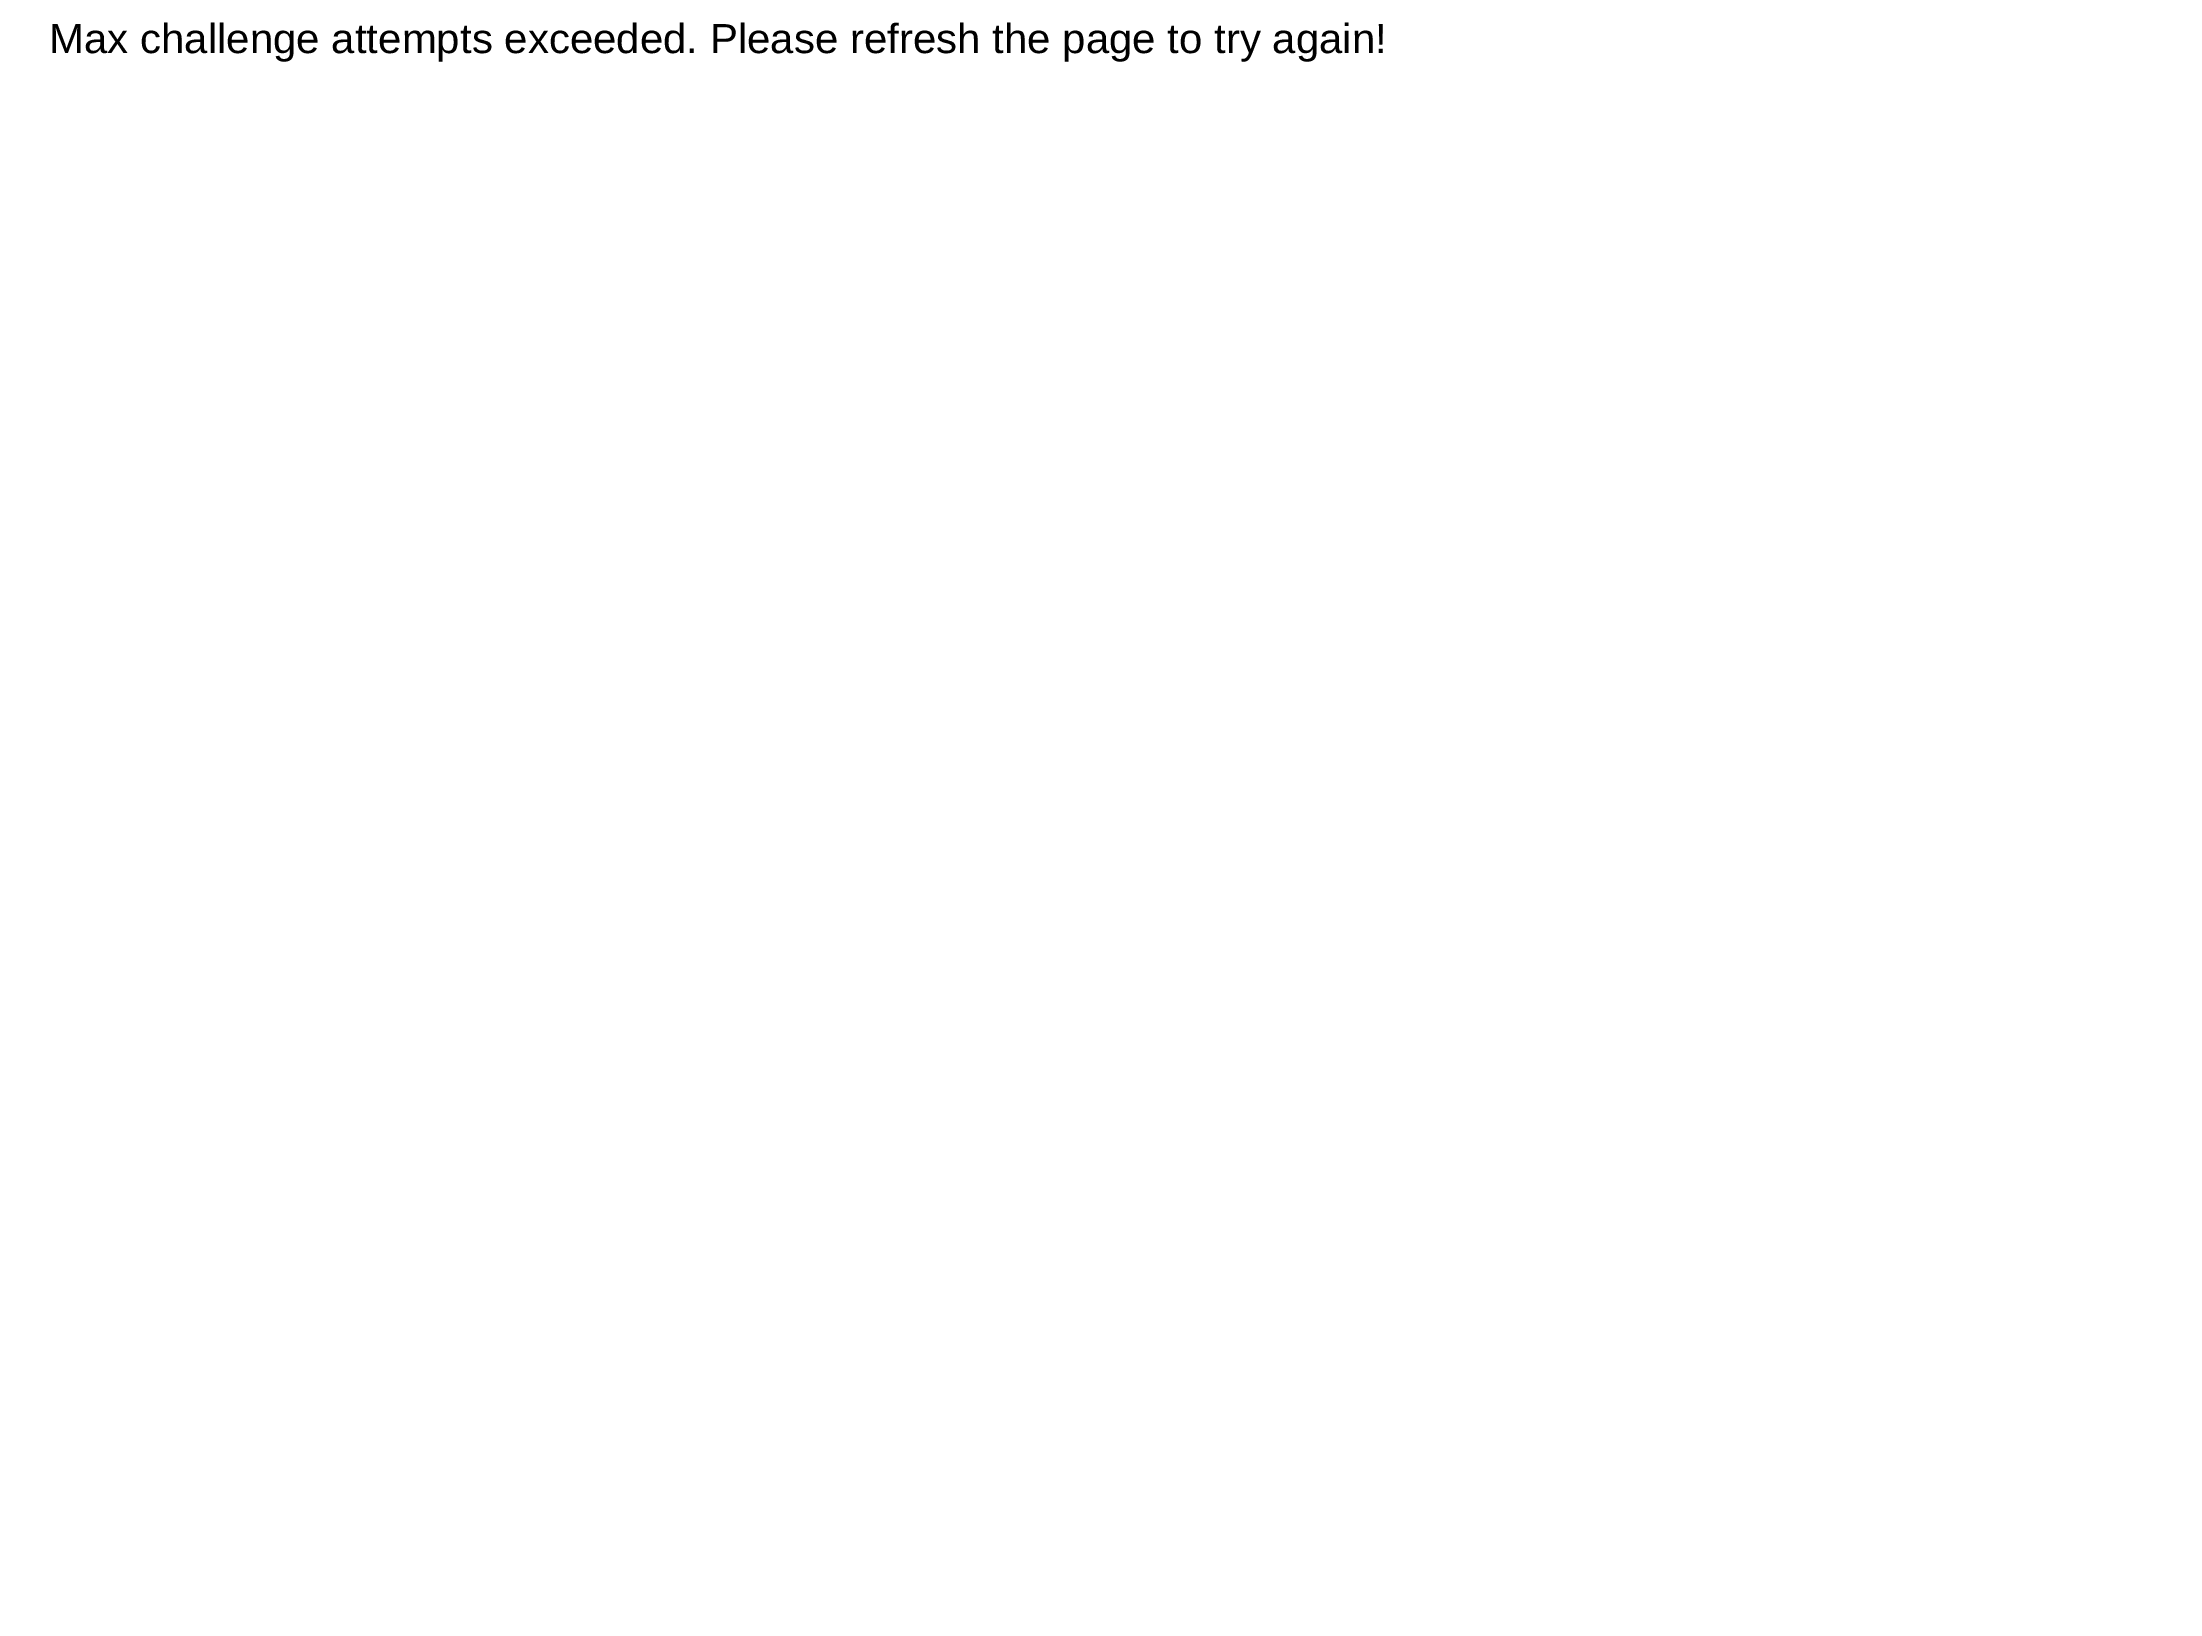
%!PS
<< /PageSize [2202 1636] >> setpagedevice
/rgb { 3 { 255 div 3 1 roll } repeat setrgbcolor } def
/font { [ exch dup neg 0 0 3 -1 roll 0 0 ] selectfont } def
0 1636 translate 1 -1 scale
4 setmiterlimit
255 255 255 rgb
0 0 2202 1636 rectfill
/LiberationSans-Regular 42 font
0 0 0 rgb
49 53 moveto (Max challenge attempts exceeded. Please refresh the page to try again!) show
showpage
